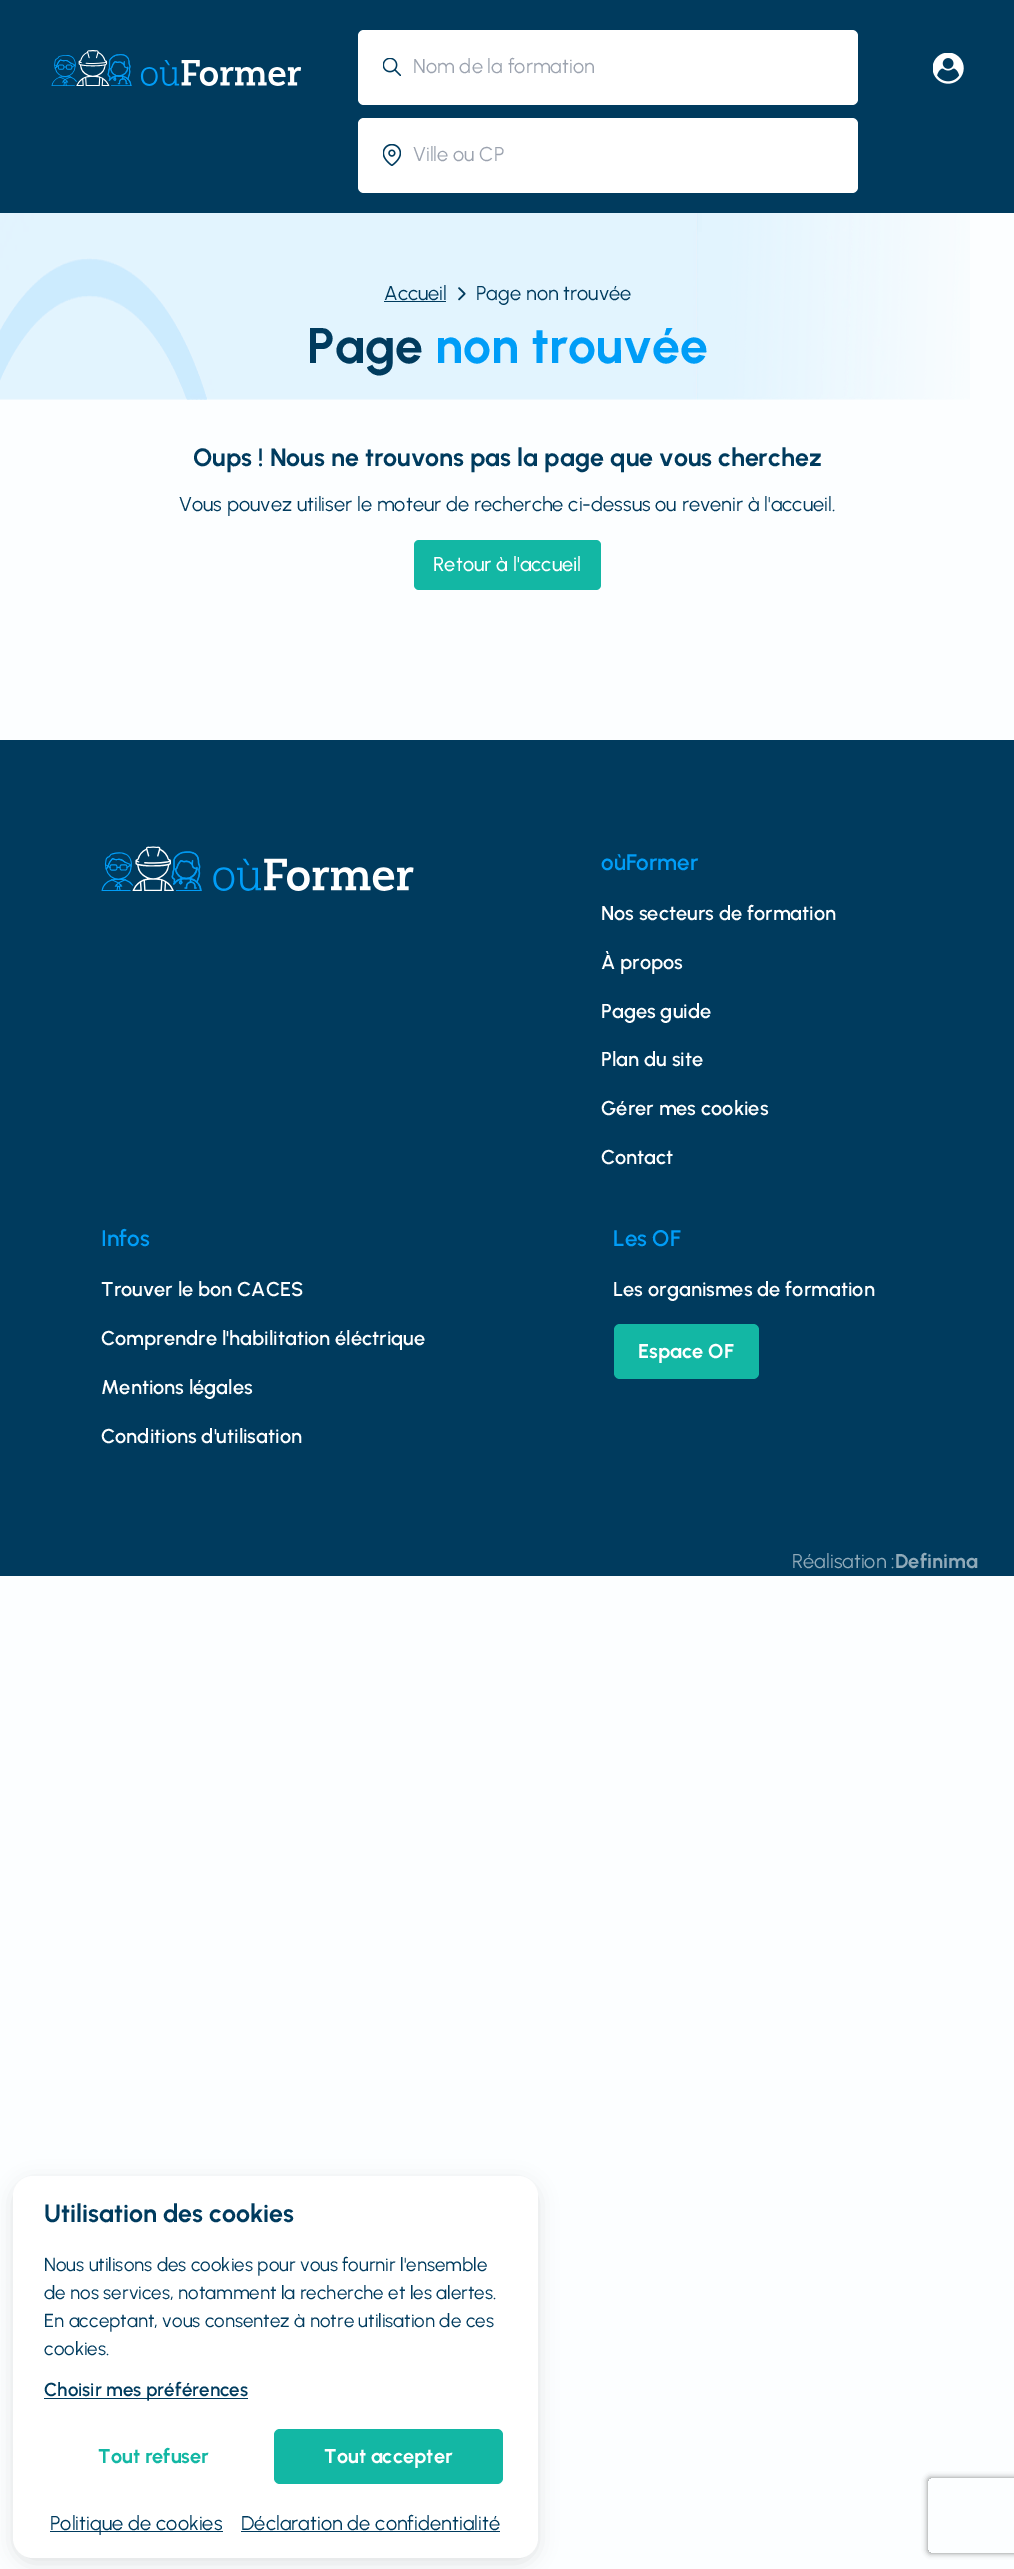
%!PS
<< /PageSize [1014 2569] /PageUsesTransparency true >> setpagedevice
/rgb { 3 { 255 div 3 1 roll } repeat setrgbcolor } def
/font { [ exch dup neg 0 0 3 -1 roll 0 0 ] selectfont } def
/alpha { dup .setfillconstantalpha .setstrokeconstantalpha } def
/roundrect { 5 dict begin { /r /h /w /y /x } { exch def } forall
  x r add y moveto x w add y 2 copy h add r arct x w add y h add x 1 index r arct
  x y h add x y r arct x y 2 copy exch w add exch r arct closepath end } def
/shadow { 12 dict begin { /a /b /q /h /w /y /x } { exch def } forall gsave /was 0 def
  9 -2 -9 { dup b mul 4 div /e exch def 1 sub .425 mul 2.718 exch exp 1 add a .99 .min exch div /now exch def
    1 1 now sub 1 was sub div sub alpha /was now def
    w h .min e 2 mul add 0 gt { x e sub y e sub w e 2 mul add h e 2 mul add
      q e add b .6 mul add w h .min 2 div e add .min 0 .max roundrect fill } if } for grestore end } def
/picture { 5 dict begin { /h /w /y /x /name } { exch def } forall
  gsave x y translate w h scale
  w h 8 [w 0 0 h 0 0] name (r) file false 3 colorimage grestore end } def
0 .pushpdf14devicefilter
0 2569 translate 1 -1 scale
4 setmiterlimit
252 254 255 rgb
0 0 1014 2569 rectfill
0 59 94 rgb
0 0 1014 213 rectfill
(img/1.rgb) 51 50 250 36 picture
(img/2.rgb) 933 53 31 31 picture
255 255 255 rgb
358 30 500 75 6 roundrect fill
(img/3.rgb) 383 58 18 18 picture
358 118 500 75 6 roundrect fill
(img/4.rgb) 383 144 18 22 picture
(img/5.rgb) 0 213 970 187 picture
0 59 94 rgb
384 301 62 1 rectfill
(img/6.rgb) 458 287 8 14 picture
19 183 164 rgb
414 540 187 50 5 roundrect fill
0 59 94 rgb
0 740 1014 836 rectfill
(img/7.rgb) 101 846 313 45 picture
19 183 164 rgb
614 1324 145 55 6 roundrect fill
0 0 0 rgb
13 2181 525 382 20 9.5 0.11 shadow
255 255 255 rgb
13 2176 525 382 20 roundrect fill
0 59 94 rgb
44 2398 204 1 rectfill
19 183 164 rgb
274 2429 229 55 6 roundrect fill
0 59 94 rgb
50 2531 173 1 rectfill
241 2531 259 1 rectfill
gsave
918 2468 moveto 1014 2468 lineto 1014 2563 lineto 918 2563 lineto closepath 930.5 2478 moveto 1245.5 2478 lineto 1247 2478 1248 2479 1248 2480.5 curveto 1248 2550.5 lineto 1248 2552 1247 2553 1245.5 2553 curveto 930.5 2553 lineto 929 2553 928 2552 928 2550.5 curveto 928 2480.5 lineto 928 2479 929 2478 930.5 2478 curveto closepath eoclip newpath
128 128 128 rgb
928 2478 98 75 2.5 3 1 shadow
grestore
/Urbanist-Regular 20 font
156 163 175 rgb
413 73 moveto (Nom de la formation) show
413 161 moveto (Ville ou CP) show
0 59 94 rgb
384 300 moveto (Accueil) show
476 300 moveto (Page non trouvée) show
/Urbanist-Bold 50 font
307 363 moveto (Page) show
0 157 247 rgb
435 363 moveto (non trouvée) show
/Urbanist-Bold 25 font
0 59 94 rgb
193 466 moveto (Oups ! Nous ne trouvons pas la page que vous cherchez) show
/Urbanist-Regular 20 font
179 511 moveto (Vous pouvez utiliser le moteur de recherche ci-dessus ou revenir à l'accueil.) show
/Urbanist-Medium 20 font
255 255 255 rgb
433 571 moveto (Retour à l'accueil) show
/Urbanist-SemiBold 22.5 font
0 157 247 rgb
601 870 moveto (oùFormer) show
/Urbanist-SemiBold 20 font
255 255 255 rgb
[
  [(Nos secteurs de formation) 601 920]
  [(À propos) 601 969]
  [(Pages guide) 601 1018]
  [(Plan du site) 601 1066]
  [(Gérer mes cookies) 601 1115]
  [(Contact) 601 1164]
] { aload pop moveto show } forall
/Urbanist-SemiBold 22.5 font
0 157 247 rgb
101 1246 moveto (Infos) show
/Urbanist-SemiBold 20 font
255 255 255 rgb
[
  [(Trouver le bon CACES) 101 1296]
  [(Comprendre l'habilitation éléctrique) 101 1345]
  [(Mentions légales) 101 1394]
  [(Conditions d'utilisation) 101 1443]
] { aload pop moveto show } forall
/Urbanist-SemiBold 22.5 font
0 157 247 rgb
613 1246 moveto (Les OF) show
/Urbanist-SemiBold 20 font
255 255 255 rgb
613 1296 moveto (Les organismes de formation) show
/Urbanist-Bold 20 font
638 1358 moveto (Espace OF) show
/Urbanist-Regular 20 font
144 170 185 rgb
792 1568 moveto (Réalisation :) show
/Urbanist-Bold 20 font
895 1568 moveto (Definima) show
/Urbanist-Bold 25 font
0 59 94 rgb
44 2222 moveto (Utilisation des cookies) show
/Urbanist-Regular 18.75 font
[
  [(Nous utilisons des cookies pour vous fournir l'ensemble) 44 2271]
  [(de nos services, notamment la recherche et les alertes.) 44 2299]
  [(En acceptant, vous consentez à notre utilisation de ces) 44 2327]
  [(cookies.) 44 2355]
] { aload pop moveto show } forall
/Urbanist-SemiBold 18.75 font
44 2396 moveto (Choisir mes préférences) show
/Urbanist-Bold 20 font
19 183 164 rgb
98 2463 moveto (Tout refuser) show
255 255 255 rgb
324 2463 moveto (Tout accepter) show
/Urbanist-Regular 20 font
0 59 94 rgb
50 2530 moveto (Politique de cookies) show
241 2530 moveto (Déclaration de confidentialité) show
.poppdf14devicefilter showpage
